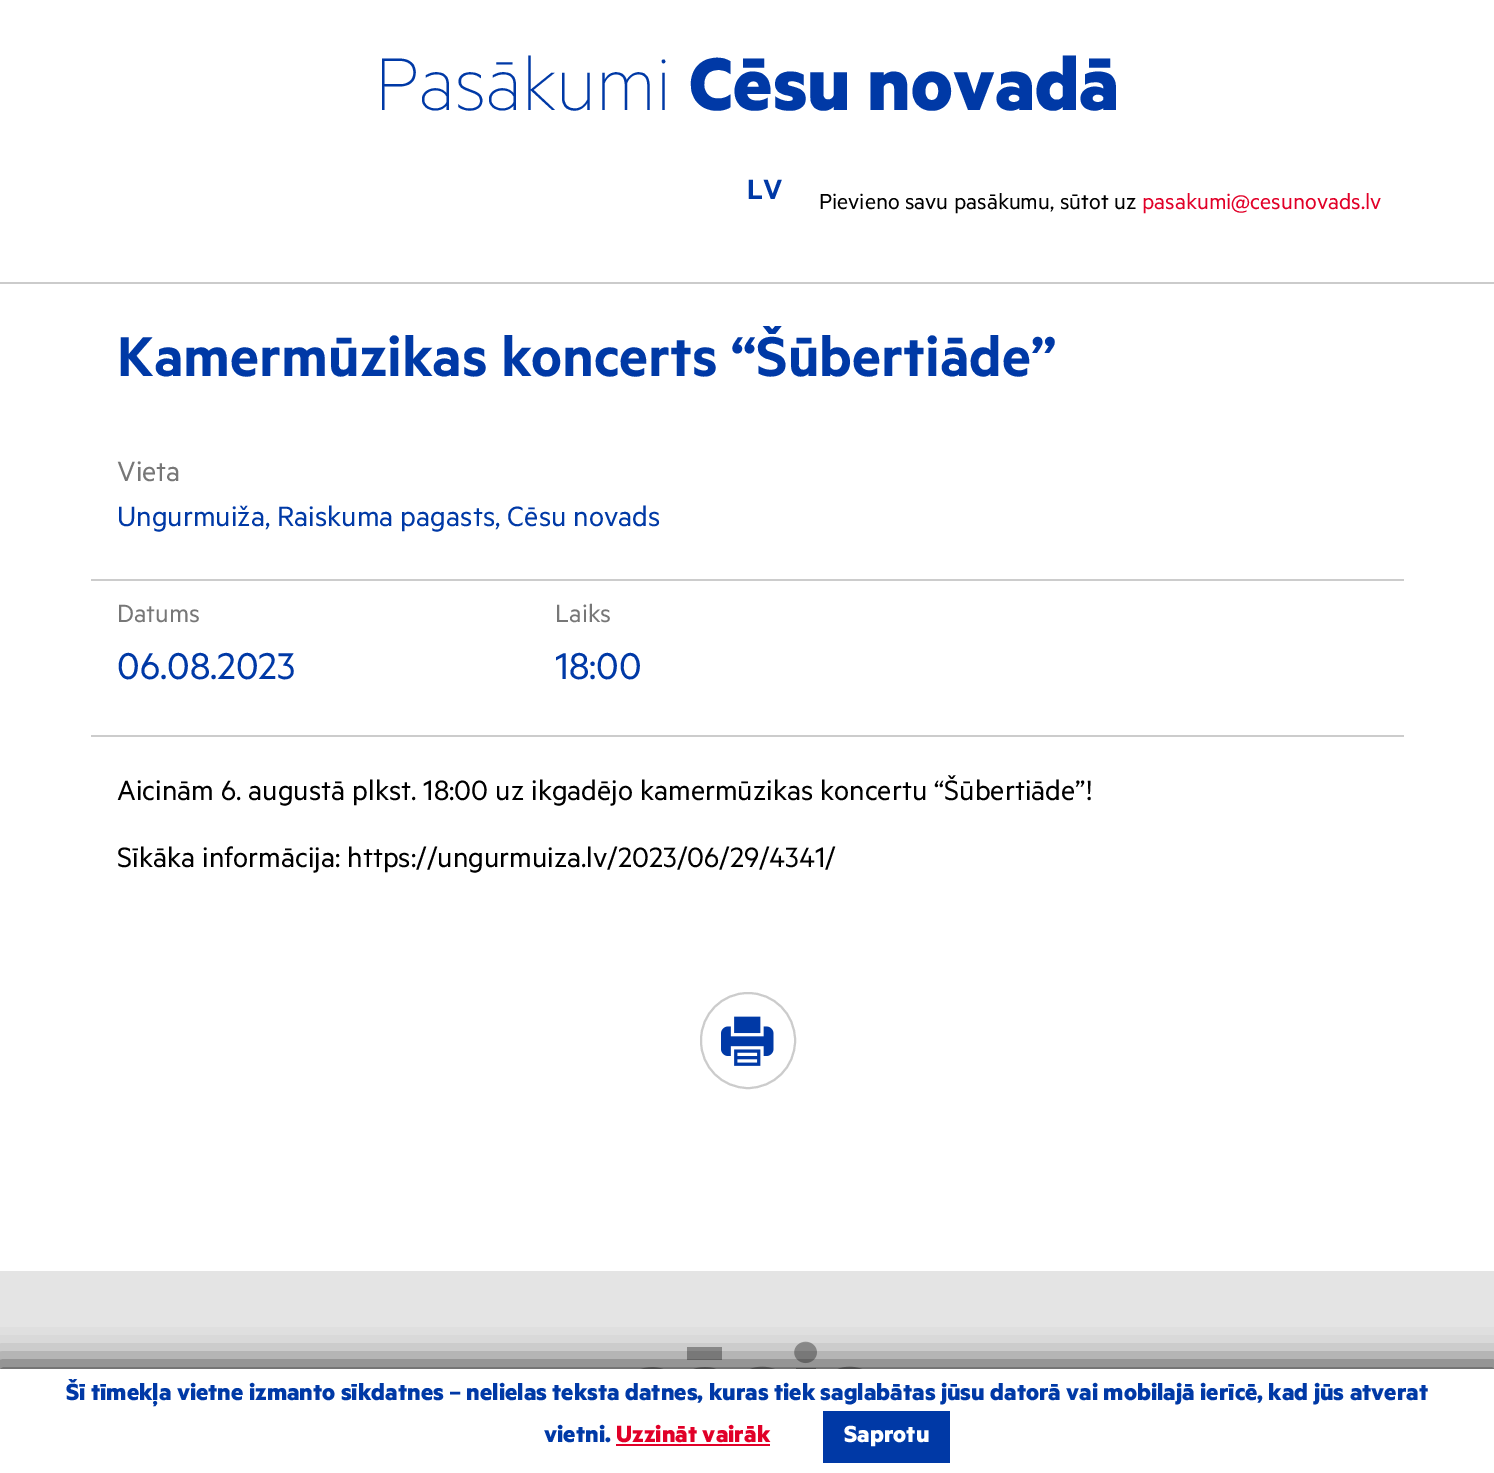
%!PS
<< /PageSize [1494 1473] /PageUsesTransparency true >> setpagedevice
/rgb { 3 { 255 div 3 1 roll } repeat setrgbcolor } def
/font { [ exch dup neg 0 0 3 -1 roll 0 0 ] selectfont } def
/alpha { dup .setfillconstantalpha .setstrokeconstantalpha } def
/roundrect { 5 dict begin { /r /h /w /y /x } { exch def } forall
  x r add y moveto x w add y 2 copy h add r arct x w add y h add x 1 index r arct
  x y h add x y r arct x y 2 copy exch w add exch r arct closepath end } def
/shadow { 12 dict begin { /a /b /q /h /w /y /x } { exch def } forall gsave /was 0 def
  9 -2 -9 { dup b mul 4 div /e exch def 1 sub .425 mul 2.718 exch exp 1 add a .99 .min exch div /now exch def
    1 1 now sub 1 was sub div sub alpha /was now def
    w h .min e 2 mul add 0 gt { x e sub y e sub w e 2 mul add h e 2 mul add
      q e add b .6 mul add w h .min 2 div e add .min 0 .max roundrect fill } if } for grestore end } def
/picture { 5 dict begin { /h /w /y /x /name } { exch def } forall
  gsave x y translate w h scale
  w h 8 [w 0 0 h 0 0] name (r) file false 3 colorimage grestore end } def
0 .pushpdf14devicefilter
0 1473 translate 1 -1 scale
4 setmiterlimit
255 255 255 rgb
0 0 1494 1473 rectfill
[
  [0 282 1494 2 203 203 203]
  [91 579 1313 2 204 204 204]
  [91 735 1313 2 204 204 204]
] { aload pop rgb rectfill } forall
2 setlinewidth
701 993 94 95 47 roundrect stroke
(img/1.rgb) 721 1016 53 50 picture
228 228 228 rgb
0 1271 1494 98 rectfill
(img/2.rgb) 640 1341 223 28 picture
0 0 0 rgb
-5 1363 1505 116 0 16 0.7 shadow
[
  [0 1369 1494 104 255 255 255]
  [616 1444 154 2 225 0 40]
  [823 1411 127 52 0 57 166]
] { aload pop rgb rectfill } forall
/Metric-Thin 84 font
375 110 moveto (Pasākumi) show
/Metric-Bold 84 font
689 110 moveto (Cēsu novadā) show
/Metric-SemiBold 31.5 font
747 199 moveto (LV) show
/Metric-Regular 24.5 font
0 0 0 rgb
819 209 moveto (Pievieno savu pasākumu, sūtot uz) show
225 0 40 rgb
1142 209 moveto (pasakumi@cesunovads.lv) show
/Metric-SemiBold 63 font
0 57 166 rgb
117 376 moveto (Kamermūzikas koncerts “Šūbertiāde”) show
/Metric-Regular 31.5 font
119 119 119 rgb
117 481 moveto (Vieta) show
0 57 166 rgb
117 526 moveto (Ungurmuiža, Raiskuma pagasts, Cēsu novads) show
/Metric-Regular 28 font
119 119 119 rgb
117 622 moveto (Datums) show
/Metric-Regular 42 font
0 57 166 rgb
117 679 moveto (06.08.2023) show
/Metric-Regular 28 font
119 119 119 rgb
555 622 moveto (Laiks) show
/Metric-Regular 42 font
0 57 166 rgb
555 679 moveto (18:00) show
/Metric-Regular 31.5 font
0 0 0 rgb
117 800 moveto (Aicinām 6. augustā plkst. 18:00 uz ikgadējo kamermūzikas koncertu “Šūbertiāde”!) show
117 867 moveto (Sīkāka informācija: https://ungurmuiza.lv/2023/06/29/4341/) show
/Metric-Bold 26.25 font
0 57 166 rgb
66 1400 moveto (Šī tīmekļa vietne izmanto sīkdatnes – nelielas teksta datnes, kuras tiek saglabātas jūsu datorā vai mobilajā ierīcē, kad jūs atverat) show
544 1442 moveto (vietni.) show
225 0 40 rgb
616 1442 moveto (Uzzināt vairāk) show
255 255 255 rgb
844 1442 moveto (Saprotu) show
.poppdf14devicefilter showpage
